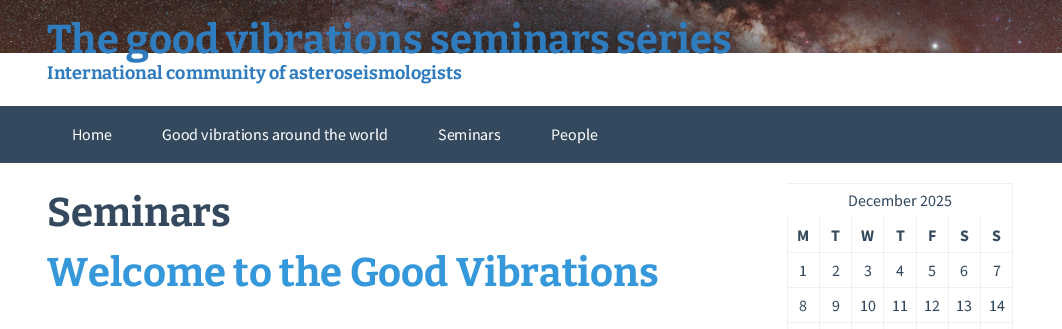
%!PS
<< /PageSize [1062 329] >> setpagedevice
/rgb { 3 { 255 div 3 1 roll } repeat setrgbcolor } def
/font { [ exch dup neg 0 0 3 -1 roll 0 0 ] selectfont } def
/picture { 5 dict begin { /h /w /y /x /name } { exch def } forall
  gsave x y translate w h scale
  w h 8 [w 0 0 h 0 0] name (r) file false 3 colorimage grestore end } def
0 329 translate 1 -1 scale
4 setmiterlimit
255 255 255 rgb
0 0 1062 329 rectfill
(img/1.rgb) 0 0 1062 53 picture
[
  [0 106 1062 57 52 73 94]
  [787 183 226 1 236 240 241]
  [1012 183 1 146 236 240 241]
  [787 252 225 1 236 240 241]
  [787 218 1 35 236 240 241]
  [819 218 1 35 236 240 241]
  [851 218 1 35 236 240 241]
  [883 218 1 35 236 240 241]
  [916 218 1 35 236 240 241]
  [948 218 1 35 236 240 241]
  [980 218 1 35 236 240 241]
  [787 287 225 1 236 240 241]
  [787 253 1 35 236 240 241]
  [819 253 1 35 236 240 241]
  [851 253 1 35 236 240 241]
  [883 253 1 35 236 240 241]
  [916 253 1 35 236 240 241]
  [948 253 1 35 236 240 241]
  [980 253 1 35 236 240 241]
  [787 322 225 1 236 240 241]
  [787 288 1 41 236 240 241]
  [819 288 1 41 236 240 241]
  [851 288 1 41 236 240 241]
  [883 288 1 41 236 240 241]
  [916 288 1 41 236 240 241]
  [948 288 1 41 236 240 241]
  [980 288 1 41 236 240 241]
] { aload pop rgb rectfill } forall
/Bitter-Bold 40 font
47 124 191 rgb
47 53 moveto (The good vibrations seminars series) show
/Bitter-Bold 18 font
47 79 moveto (International community of asteroseismologists) show
/SourceSansPro-Regular 16 font
255 255 255 rgb
[
  [(Home) 72 140]
  [(Good vibrations around the world) 162 140]
  [(Seminars) 438 140]
  [(People) 551 140]
] { aload pop moveto show } forall
/Bitter-Bold 40 font
52 73 94 rgb
47 226 moveto (Seminars) show
52 152 219 rgb
47 286 moveto (Welcome to the Good Vibrations) show
/SourceSansPro-Regular 16 font
52 73 94 rgb
848 206 moveto (December 2025) show
/SourceSansPro-Bold 16 font
[
  [(M) 797 241]
  [(T) 831 241]
  [(W) 861 241]
  [(T) 896 241]
  [(F) 928 241]
  [(S) 960 241]
  [(S) 992 241]
] { aload pop moveto show } forall
/SourceSansPro-Regular 16 font
[
  [(1) 799 276]
  [(2) 832 276]
  [(3) 864 276]
  [(4) 896 276]
  [(5) 928 276]
  [(6) 960 276]
  [(7) 993 276]
  [(8) 799 311]
  [(9) 832 311]
  [(10) 860 311]
  [(11) 892 311]
  [(12) 924 311]
  [(13) 956 311]
  [(14) 989 311]
] { aload pop moveto show } forall
showpage
